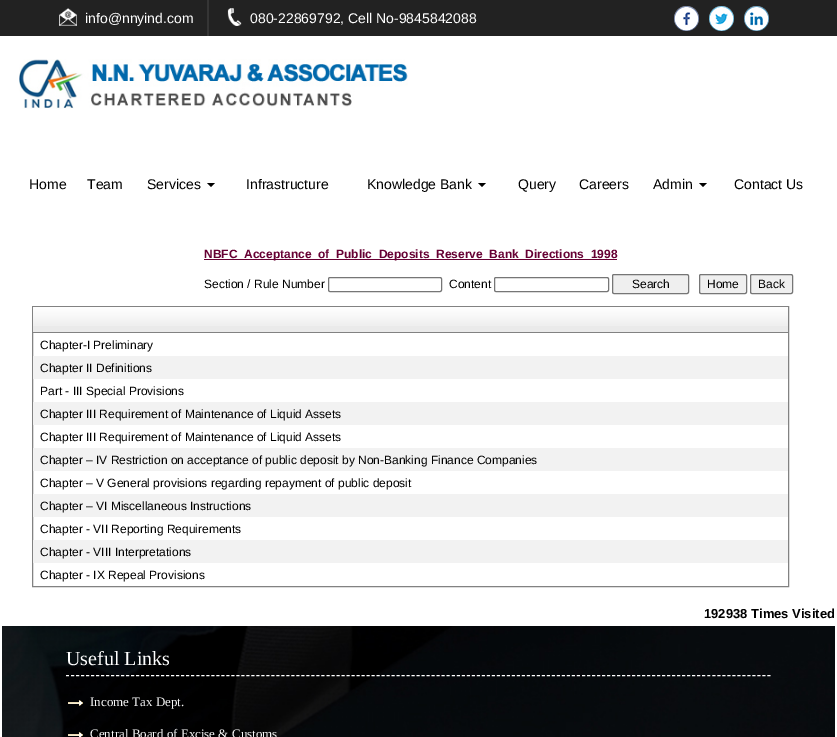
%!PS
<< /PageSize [837 737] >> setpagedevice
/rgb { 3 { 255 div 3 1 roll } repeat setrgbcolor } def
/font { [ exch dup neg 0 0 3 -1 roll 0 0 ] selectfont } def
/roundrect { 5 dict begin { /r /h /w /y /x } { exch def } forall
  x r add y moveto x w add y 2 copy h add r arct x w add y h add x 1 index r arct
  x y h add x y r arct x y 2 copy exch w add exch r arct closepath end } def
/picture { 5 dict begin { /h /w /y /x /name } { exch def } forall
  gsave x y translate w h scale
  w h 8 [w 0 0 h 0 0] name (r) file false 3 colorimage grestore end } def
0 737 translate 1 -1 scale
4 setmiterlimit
255 255 255 rgb
0 0 837 737 rectfill
34 34 34 rgb
0 0 837 36 rectfill
53 53 53 rgb
207 0 2 36 rectfill
(img/1.rgb) 59 8 18 18 picture
(img/2.rgb) 227 8 15 18 picture
(img/3.rgb) 674 6 25 25 picture
(img/4.rgb) 709 6 25 25 picture
(img/5.rgb) 744 6 25 25 picture
(img/6.rgb) 19 59 389 50 picture
0 0 0 rgb
207 183 moveto 215 183 lineto 211 187 lineto closepath fill
478 183 moveto 486 183 lineto 482 187 lineto closepath fill
699 183 moveto 707 183 lineto 703 187 lineto closepath fill
102 0 51 rgb
204 259 413 1 rectfill
118 118 118 rgb
328.5 277.5 113 14 1.5 roundrect stroke
494.5 277.5 114 14 1.5 roundrect stroke
239 239 239 rgb
612.5 274.5 76 19 1.5 roundrect gsave fill grestore
118 118 118 rgb
stroke
239 239 239 rgb
699.5 274.5 47 19 1.5 roundrect gsave fill grestore
118 118 118 rgb
stroke
239 239 239 rgb
750.5 274.5 42 19 1.5 roundrect gsave fill grestore
118 118 118 rgb
stroke
130 130 130 rgb
32.5 306.5 756 280 rectstroke
234 234 234 rgb
33 326 755 6 rectfill
(img/7.rgb) 33 307 755 19 picture
[
  [33 332 755 1 130 130 130]
  [33 356 755 23 242 242 242]
  [33 402 755 23 242 242 242]
  [33 448 755 23 242 242 242]
  [33 494 755 23 242 242 242]
  [33 540 755 23 242 242 242]
] { aload pop rgb rectfill } forall
(img/8.rgb) 2 626 833 111 picture
255 255 255 rgb
[3 2.01] 0 setdash
66 675.5 moveto 771 675.5 lineto stroke
(img/9.rgb) 68 700 15 6 picture
(img/10.rgb) 68 732 15 5 picture
/LiberationSans-Regular 14 font
85 23 moveto (info@nnyind.com) show
250 23 moveto (080-22869792, Cell No-9845842088) show
0 0 0 rgb
[
  [(Home) 29 189]
  [(Team) 87 189]
  [(Services) 147 189]
  [(Infrastructure) 246 189]
  [(Knowledge Bank) 367 189]
  [(Query) 518 189]
  [(Careers) 579 189]
  [(Admin) 653 189]
  [(Contact Us) 734 189]
] { aload pop moveto show } forall
/LiberationSans-Bold 12 font
102 0 51 rgb
204 258 moveto (NBFC_Acceptance_of_Public_Deposits_Reserve_Bank_Directions_1998) show
/LiberationSans-Regular 12 font
0 0 0 rgb
[
  [(Section / Rule Number) 204 288]
  [(Content) 449 288]
  [(Search) 632 288]
  [(Home) 707 288]
  [(Back) 758 288]
  [(Chapter-I Preliminary) 40 349]
  [(Chapter II Definitions) 40 372]
  [(Part - III Special Provisions) 40 395]
  [(Chapter III Requirement of Maintenance of Liquid Assets) 40 418]
  [(Chapter III Requirement of Maintenance of Liquid Assets) 40 441]
  [(Chapter – IV Restriction on acceptance of public deposit by Non-Banking Finance Companies) 40 464]
  [(Chapter – V General provisions regarding repayment of public deposit) 40 487]
  [(Chapter – VI Miscellaneous Instructions) 40 510]
  [(Chapter - VII Reporting Requirements) 40 533]
  [(Chapter - VIII Interpretations) 40 556]
  [(Chapter - IX Repeal Provisions) 40 579]
] { aload pop moveto show } forall
/LiberationSans-Bold 13 font
704 618 moveto (192938 Times Visited) show
/LiberationSerif-Regular 20 font
255 255 255 rgb
66 665 moveto (Useful Links) show
/LiberationSerif-Regular 13 font
246 246 246 rgb
90 706 moveto (Income Tax Dept.) show
90 738 moveto (Central Board of Excise & Customs) show
showpage
